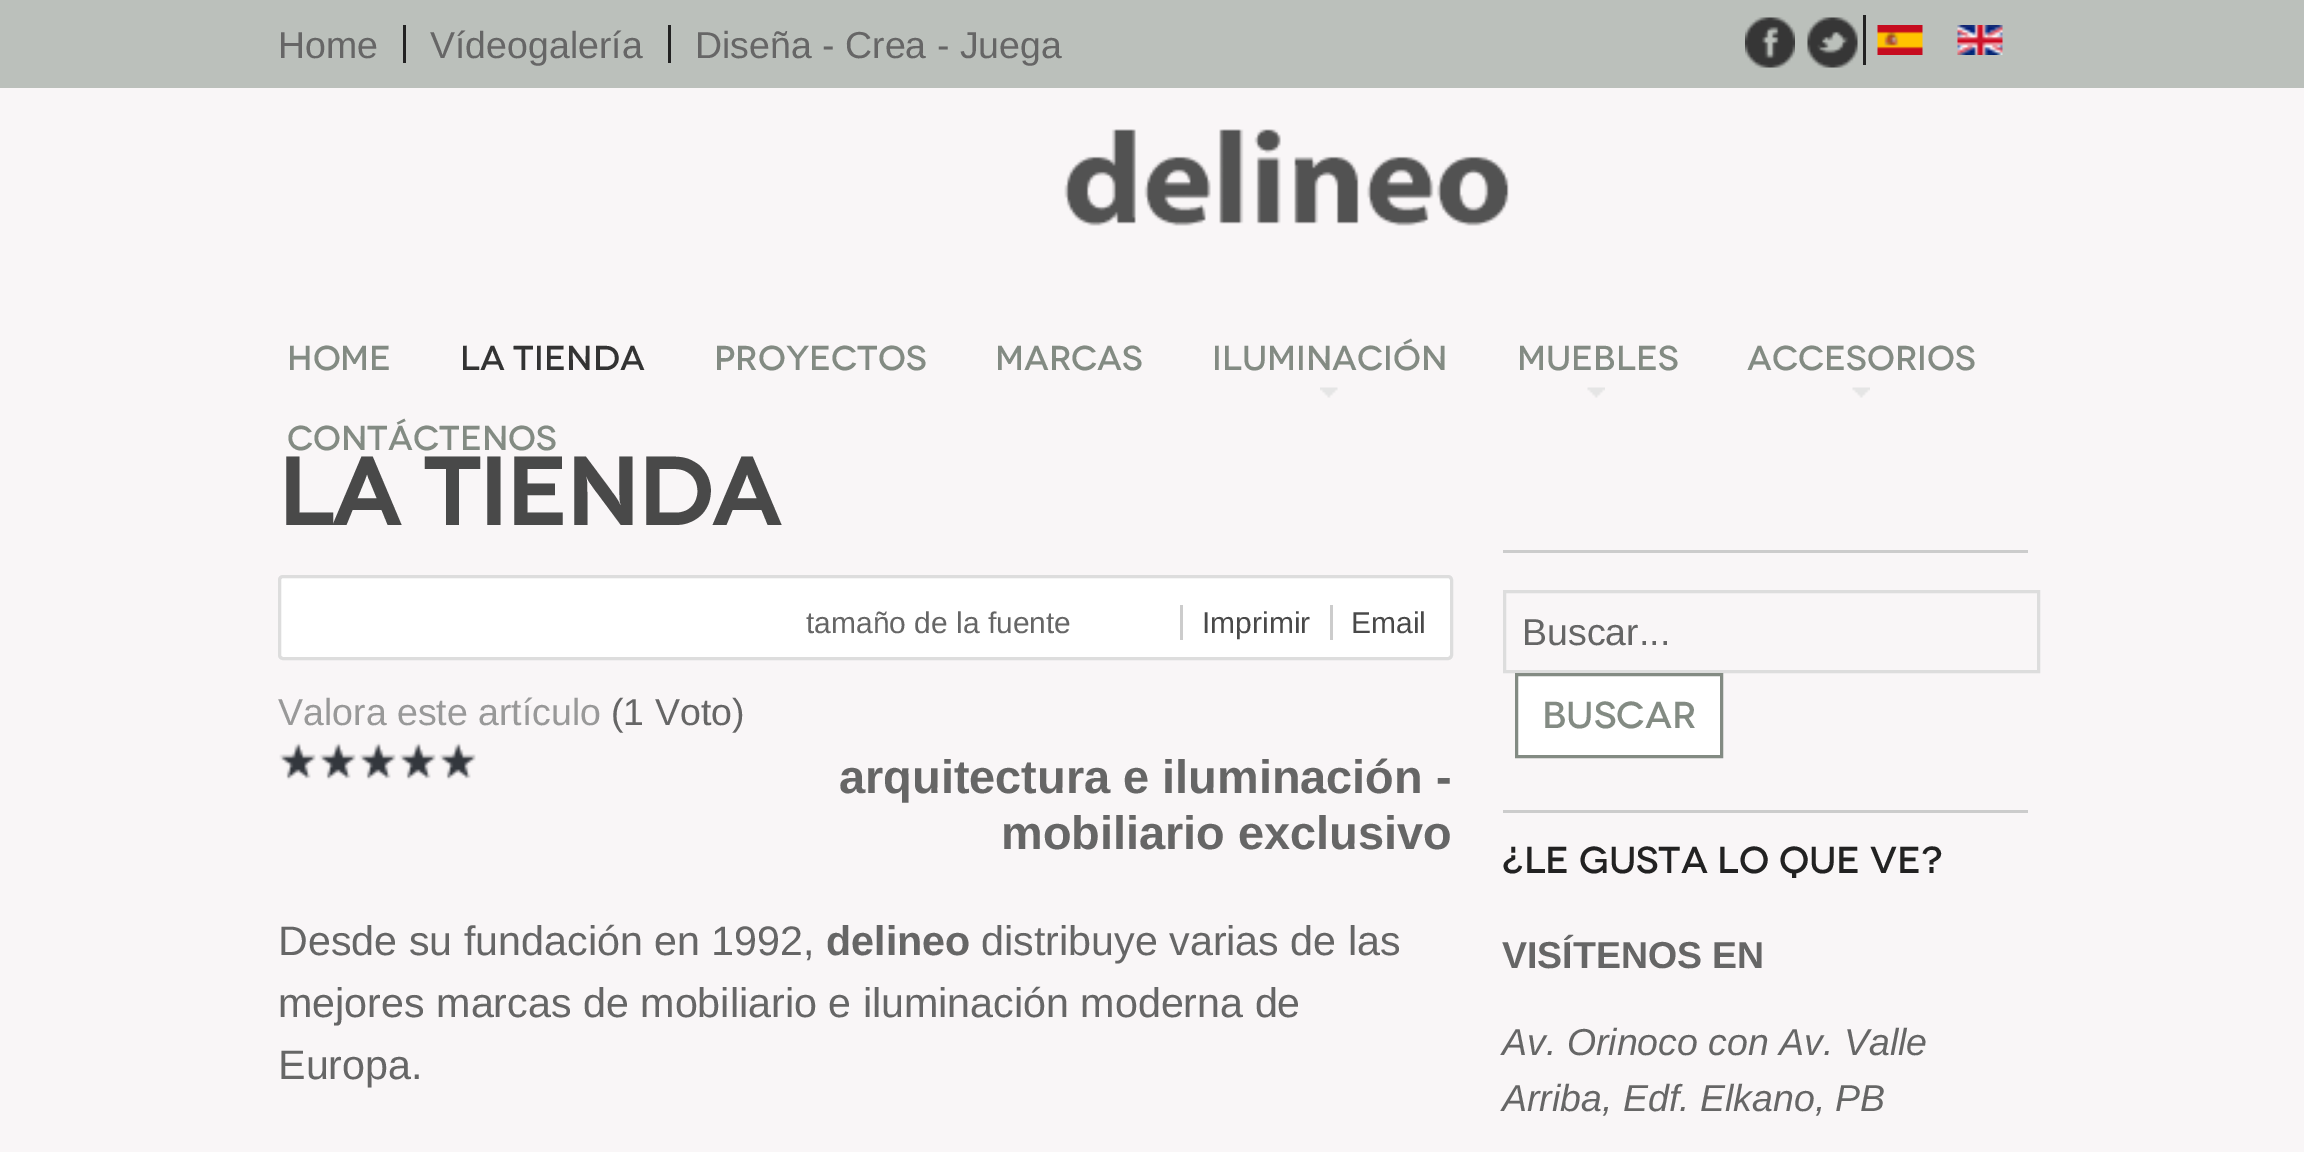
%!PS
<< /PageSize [2304 1152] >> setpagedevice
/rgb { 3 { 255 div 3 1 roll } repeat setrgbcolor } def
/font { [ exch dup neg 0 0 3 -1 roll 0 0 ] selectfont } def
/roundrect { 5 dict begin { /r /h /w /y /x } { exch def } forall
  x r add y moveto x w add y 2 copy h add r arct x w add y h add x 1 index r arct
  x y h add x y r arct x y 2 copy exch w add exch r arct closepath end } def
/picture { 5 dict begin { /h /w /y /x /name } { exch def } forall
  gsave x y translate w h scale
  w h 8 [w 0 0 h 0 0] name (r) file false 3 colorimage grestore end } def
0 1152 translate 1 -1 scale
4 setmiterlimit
249 246 247 rgb
0 0 2304 1152 rectfill
[
  [0 0 2304 88 187 192 187]
  [403 25 3 38 34 34 34]
  [668 25 3 38 34 34 34]
] { aload pop rgb rectfill } forall
(img/1.rgb) 1745 17 50 51 picture
(img/2.rgb) 1807 17 51 51 picture
1863 15 3 50 rectfill
(img/3.rgb) 1877 25 46 30 picture
(img/4.rgb) 1957 25 46 30 picture
(img/5.rgb) 1064 129 445 97 picture
(img/6.rgb) 1320 387 18 11 picture
(img/7.rgb) 1587 387 18 11 picture
(img/8.rgb) 1852 387 18 11 picture
255 255 255 rgb
279.5 576.5 1172 82 3.5 roundrect gsave fill grestore
221 221 221 rgb
3 setlinewidth
stroke
204 204 204 rgb
1180 605 3 35 rectfill
1330 605 3 35 rectfill
(img/9.rgb) 279 742 197 38 picture
1503 550 525 3 rectfill
221 221 221 rgb
1504.5 591.5 534 80 rectstroke
255 255 255 rgb
1516.5 674.5 moveto 1721.5 674.5 lineto 1721.5 756.5 lineto 1516.5 756.5 lineto closepath gsave fill grestore
131 139 131 rgb
stroke
204 204 204 rgb
1503 810 525 3 rectfill
/LiberationSans-Regular 37.5 font
102 102 102 rgb
[
  [(Home) 278 58]
  [(Vídeogalería) 430 58]
  [(Diseña - Crea - Juega) 695 58]
] { aload pop moveto show } forall
/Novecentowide-Medium 34.5 font
131 139 131 rgb
287 370 moveto (Home) show
51 51 51 rgb
460 370 moveto (La Tienda) show
131 139 131 rgb
[
  [(Proyectos) 714 370]
  [(Marcas) 995 370]
  [(Iluminación) 1212 370]
  [(Muebles) 1517 370]
  [(Accesorios) 1747 370]
  [(Contáctenos) 287 450]
] { aload pop moveto show } forall
/Novecentowide-Bold 93.75 font
73 73 73 rgb
278 525 moveto (La Tienda) show
/LiberationSans-Regular 30 font
102 102 102 rgb
806 633 moveto (tamaño de la fuente) show
73 73 73 rgb
1202 633 moveto (Imprimir) show
1351 633 moveto (Email) show
/LiberationSans-Regular 37.5 font
153 153 153 rgb
278 725 moveto (Valora este artículo) show
102 102 102 rgb
611 725 moveto (\(1 Voto\)) show
/LiberationSans-Bold 46.9 font
839 793 moveto (arquitectura e iluminación -) show
1001 849 moveto (mobiliario exclusivo) show
/LiberationSans-Regular 41.25 font
278 955 moveto (Desde su fundación en 1992,) show
/LiberationSans-Bold 41.25 font
826 955 moveto (delineo) show
/LiberationSans-Regular 41.25 font
[
  [(distribuye varias de las) 981 955]
  [(mejores marcas de mobiliario e iluminación moderna de) 278 1017]
  [(Europa.) 278 1079]
] { aload pop moveto show } forall
/LiberationSans-Regular 37.5 font
1522 645 moveto (Buscar...) show
/Novecentowide-Medium 37.5 font
131 139 131 rgb
1542 728 moveto (Buscar) show
34 34 34 rgb
1502 873 moveto (¿LE GUSTA LO QUE VE?) show
/LiberationSans-Bold 37.5 font
102 102 102 rgb
1502 968 moveto (VISÍTENOS EN) show
/LiberationSans-Italic 37.5 font
1502 1055 moveto (Av. Orinoco con Av. Valle) show
1502 1111 moveto (Arriba, Edf. Elkano, PB) show
showpage
